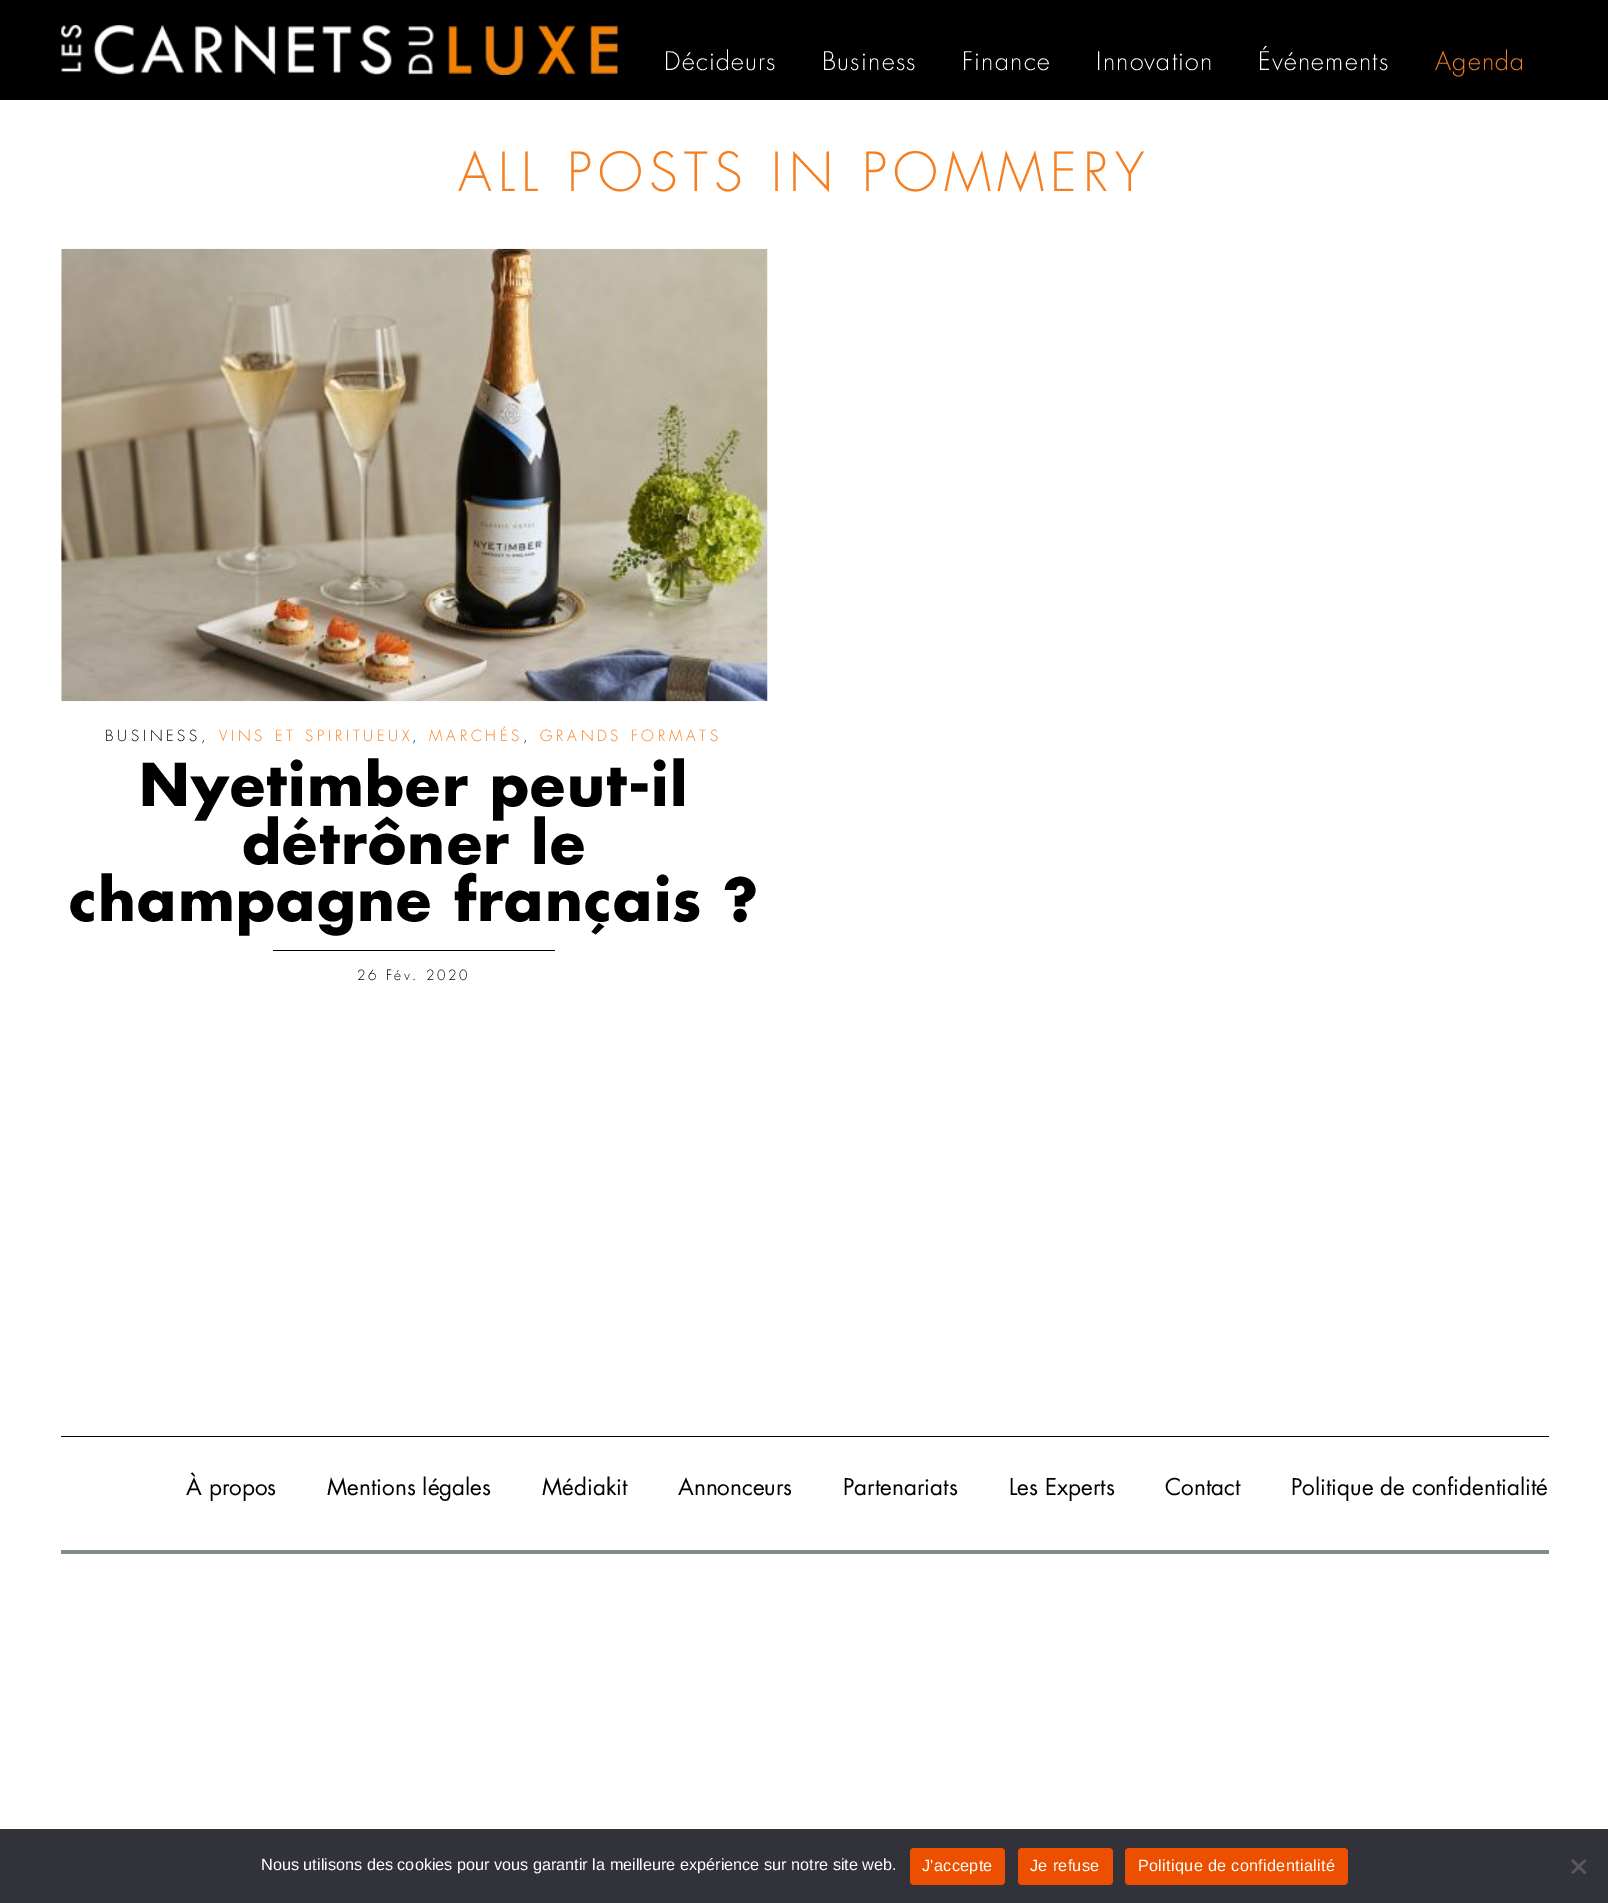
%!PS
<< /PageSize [1608 1903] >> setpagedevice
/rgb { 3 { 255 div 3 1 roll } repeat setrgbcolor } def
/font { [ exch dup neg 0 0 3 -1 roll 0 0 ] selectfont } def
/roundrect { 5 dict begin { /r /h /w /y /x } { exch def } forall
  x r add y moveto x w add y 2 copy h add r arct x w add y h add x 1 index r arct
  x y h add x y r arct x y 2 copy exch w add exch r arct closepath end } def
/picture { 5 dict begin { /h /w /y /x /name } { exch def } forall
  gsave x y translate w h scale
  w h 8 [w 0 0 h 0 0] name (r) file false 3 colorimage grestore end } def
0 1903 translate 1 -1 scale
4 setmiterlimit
255 255 255 rgb
0 0 1608 1903 rectfill
0 0 0 rgb
0 0 1608 100 rectfill
(img/1.rgb) 61 25 557 50 picture
(img/2.rgb) 61 248 707 454 picture
[
  [273 950 282 1 0 0 0]
  [61 1436 1488 1 0 0 0]
  [61 1550 1488 4 127 140 141]
  [0 1829 1608 74 50 50 58]
] { aload pop rgb rectfill } forall
237 79 0 rgb
910 1848 95 37 4 roundrect fill
1018 1848 95 37 4 roundrect fill
1125 1848 223 37 4 roundrect fill
89 89 93 rgb
1584.5 1859 moveto 1586.5 1861 lineto 1573 1874 lineto 1571 1872.5 lineto closepath fill
1571 1861 moveto 1573 1859 lineto 1586.5 1872.5 lineto 1584.5 1874 lineto closepath fill
/Futura-Light 25 font
255 255 255 rgb
664 70 moveto 1.25 0 (Décideurs) ashow
822 70 moveto 1.25 0 (Business) ashow
962 70 moveto 1.25 0 (Finance) ashow
1096 70 moveto 1.25 0 (Innovation) ashow
1258 70 moveto 1.25 0 (Événements) ashow
245 126 32 rgb
1435 70 moveto 1.25 0 (Agenda) ashow
/Futura-Light 52.5 font
458 191 moveto 6.25 0 (ALL POSTS IN POMMERY) ashow
/Futura-Light 15 font
0 0 0 rgb
105 741 moveto 3.75 0 (BUSINESS,) ashow
245 126 32 rgb
219 741 moveto 3.75 0 (VINS ET SPIRITUEUX) ashow
0 0 0 rgb
412 741 moveto 3.75 0 (,) ashow
245 126 32 rgb
429 741 moveto 3.75 0 (MARCHÉS) ashow
0 0 0 rgb
523 741 moveto 3.75 0 (,) ashow
245 126 32 rgb
540 741 moveto 3.75 0 (GRANDS FORMATS) ashow
/Futura-Bold 57.5 font
0 0 0 rgb
139 806 moveto 1.25 0 (Nyetimber peut-il) ashow
242 864 moveto 1.25 0 (détrôner le) ashow
69 921 moveto 1.25 0 (champagne français ?) ashow
/Futura-Light 13.75 font
357 980 moveto 2.5 0 (26 Fév. 2020) ashow
/Futura-Regular 22.5 font
[
  [(À propos) 186 1495]
  [(Mentions légales) 327 1495]
  [(Médiakit) 542 1495]
  [(Annonceurs) 678 1495]
  [(Partenariats) 843 1495]
  [(Les Experts) 1009 1495]
  [(Contact) 1165 1495]
  [(Politique de confidentialité) 1291 1495]
] { aload pop moveto show } forall
/LiberationSans-Regular 16.25 font
255 255 255 rgb
261 1870 moveto (Nous utilisons des cookies pour vous garantir la meilleure expérience sur notre site web.) show
922 1871 moveto 0.3 0 (J'accepte) ashow
1030 1871 moveto 0.3 0 (Je refuse) ashow
1138 1871 moveto 0.3 0 (Politique de confidentialité) ashow
showpage
